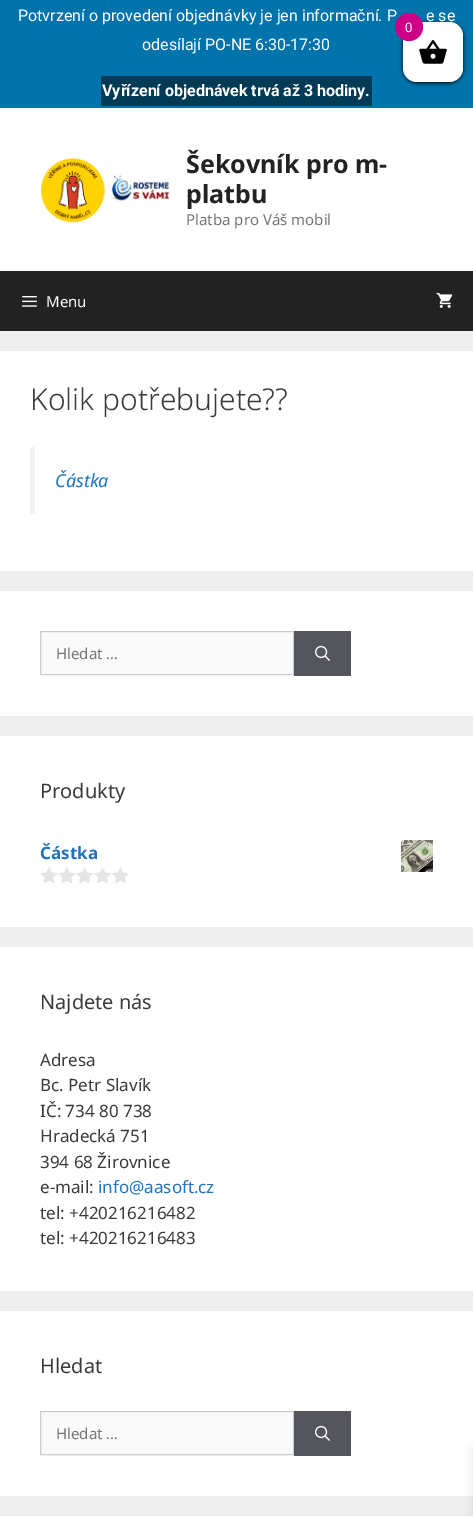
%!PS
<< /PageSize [473 1517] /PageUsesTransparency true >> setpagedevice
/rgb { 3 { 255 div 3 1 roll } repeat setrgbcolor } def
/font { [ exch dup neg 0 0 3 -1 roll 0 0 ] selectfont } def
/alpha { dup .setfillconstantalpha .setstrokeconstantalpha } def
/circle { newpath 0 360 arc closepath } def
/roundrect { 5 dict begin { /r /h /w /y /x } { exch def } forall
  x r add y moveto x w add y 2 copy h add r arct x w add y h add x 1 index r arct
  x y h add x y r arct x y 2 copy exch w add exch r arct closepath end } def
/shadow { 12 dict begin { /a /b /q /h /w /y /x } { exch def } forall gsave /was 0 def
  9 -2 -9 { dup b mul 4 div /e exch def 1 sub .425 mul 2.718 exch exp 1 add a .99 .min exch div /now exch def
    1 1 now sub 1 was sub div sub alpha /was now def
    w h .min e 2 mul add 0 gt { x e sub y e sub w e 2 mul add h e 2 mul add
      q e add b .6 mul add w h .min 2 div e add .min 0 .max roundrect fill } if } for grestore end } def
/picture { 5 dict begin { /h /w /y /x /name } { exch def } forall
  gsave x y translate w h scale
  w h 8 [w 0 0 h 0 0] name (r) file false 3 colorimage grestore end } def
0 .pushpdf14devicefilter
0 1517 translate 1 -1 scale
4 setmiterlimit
239 239 239 rgb
0 0 473 1517 rectfill
0 115 170 rgb
0 0 473 108 rectfill
0 58 85 rgb
101 76 271 30 2 roundrect fill
0 0 0 rgb
403 23 60 60 14 2 1 shadow
255 255 255 rgb
403 22 60 60 14 roundrect fill
(img/1.rgb) 419 40 28 24 picture
0 1311 473 185 rectfill
0 1516 473 1 rectfill
0 0 0 rgb
473 1449 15 67 0 5 0.1 shadow
255 255 255 rgb
0 108 473 163 rectfill
(img/2.rgb) 41 158 129 65 picture
34 34 34 rgb
0 271 473 60 rectfill
(img/3.rgb) 22 296 15 11 picture
(img/4.rgb) 436 292 17 16 picture
[
  [0 351 473 220 255 255 255]
  [30 447 5 67 242 242 242]
  [0 591 473 125 255 255 255]
] { aload pop rgb rectfill } forall
250 250 250 rgb
40.5 631.5 moveto 293.5 631.5 lineto 293.5 674.5 lineto 40.5 674.5 lineto closepath gsave fill grestore
204 204 204 rgb
stroke
85 85 94 rgb
294 631 57 45 rectfill
(img/5.rgb) 315 645 15 16 picture
255 255 255 rgb
0 736 473 191 rectfill
(img/6.rgb) 401 840 32 32 picture
(img/7.rgb) 40 867 89 16 picture
0 947 473 344 rectfill
250 250 250 rgb
40.5 1411.5 moveto 293.5 1411.5 lineto 293.5 1454.5 lineto 40.5 1454.5 lineto closepath gsave fill grestore
204 204 204 rgb
stroke
85 85 94 rgb
294 1411 57 45 rectfill
(img/5.rgb) 315 1425 15 16 picture
/Roboto-Regular 16 font
255 255 255 rgb
[
  [(Potvrzení o provedení objednávky je jen informační. P) 18 21]
  [(e se) 426 21]
  [(odesílají PO-NE 6:30-17:30) 142 50]
] { aload pop moveto show } forall
/Roboto-Bold 16 font
102 96 moveto (Vyřízení objednávek trvá až 3 hodiny.) show
204 0 134 rgb
409 27 14 circle fill
/NotoSans-Regular 13 font
255 255 255 rgb
405 32 moveto (0) show
/NotoSans-Bold 25 font
34 34 34 rgb
186 173 moveto (Šekovník pro m-) show
186 203 moveto (platbu) show
/NotoSans-Regular 15 font
117 117 117 rgb
186 225 moveto (Platba pro Váš mobil) show
255 255 255 rgb
46 307 moveto (Menu) show
/NotoSans-Light 30 font
58 58 58 rgb
30 410 moveto (Kolik potřebujete??) show
/NotoSans-Italic 18 font
30 115 190 rgb
55 487 moveto (Částka) show
/NotoSans-Regular 15 font
117 117 117 rgb
56 659 moveto (Hledat …) show
/NotoSans-Regular 20 font
58 58 58 rgb
40 798 moveto (Produkty) show
/NotoSans-Bold 17 font
30 115 190 rgb
40 859 moveto (Částka) show
/NotoSans-Regular 20 font
58 58 58 rgb
40 1009 moveto (Najdete nás) show
/NotoSans-Regular 17 font
[
  [(Adresa) 40 1066]
  [(Bc. Petr Slavík) 40 1091]
  [(IČ: 734 80 738) 40 1117]
  [(Hradecká 751) 40 1142]
  [(394 68 Žirovnice) 40 1168]
  [(e-mail:) 40 1193]
] { aload pop moveto show } forall
30 115 190 rgb
98 1193 moveto (info@aasoft.cz) show
58 58 58 rgb
40 1219 moveto (tel: +420216216482) show
40 1244 moveto (tel: +420216216483) show
/NotoSans-Regular 20 font
40 1373 moveto (Hledat) show
/NotoSans-Regular 15 font
117 117 117 rgb
56 1439 moveto (Hledat …) show
.poppdf14devicefilter showpage
